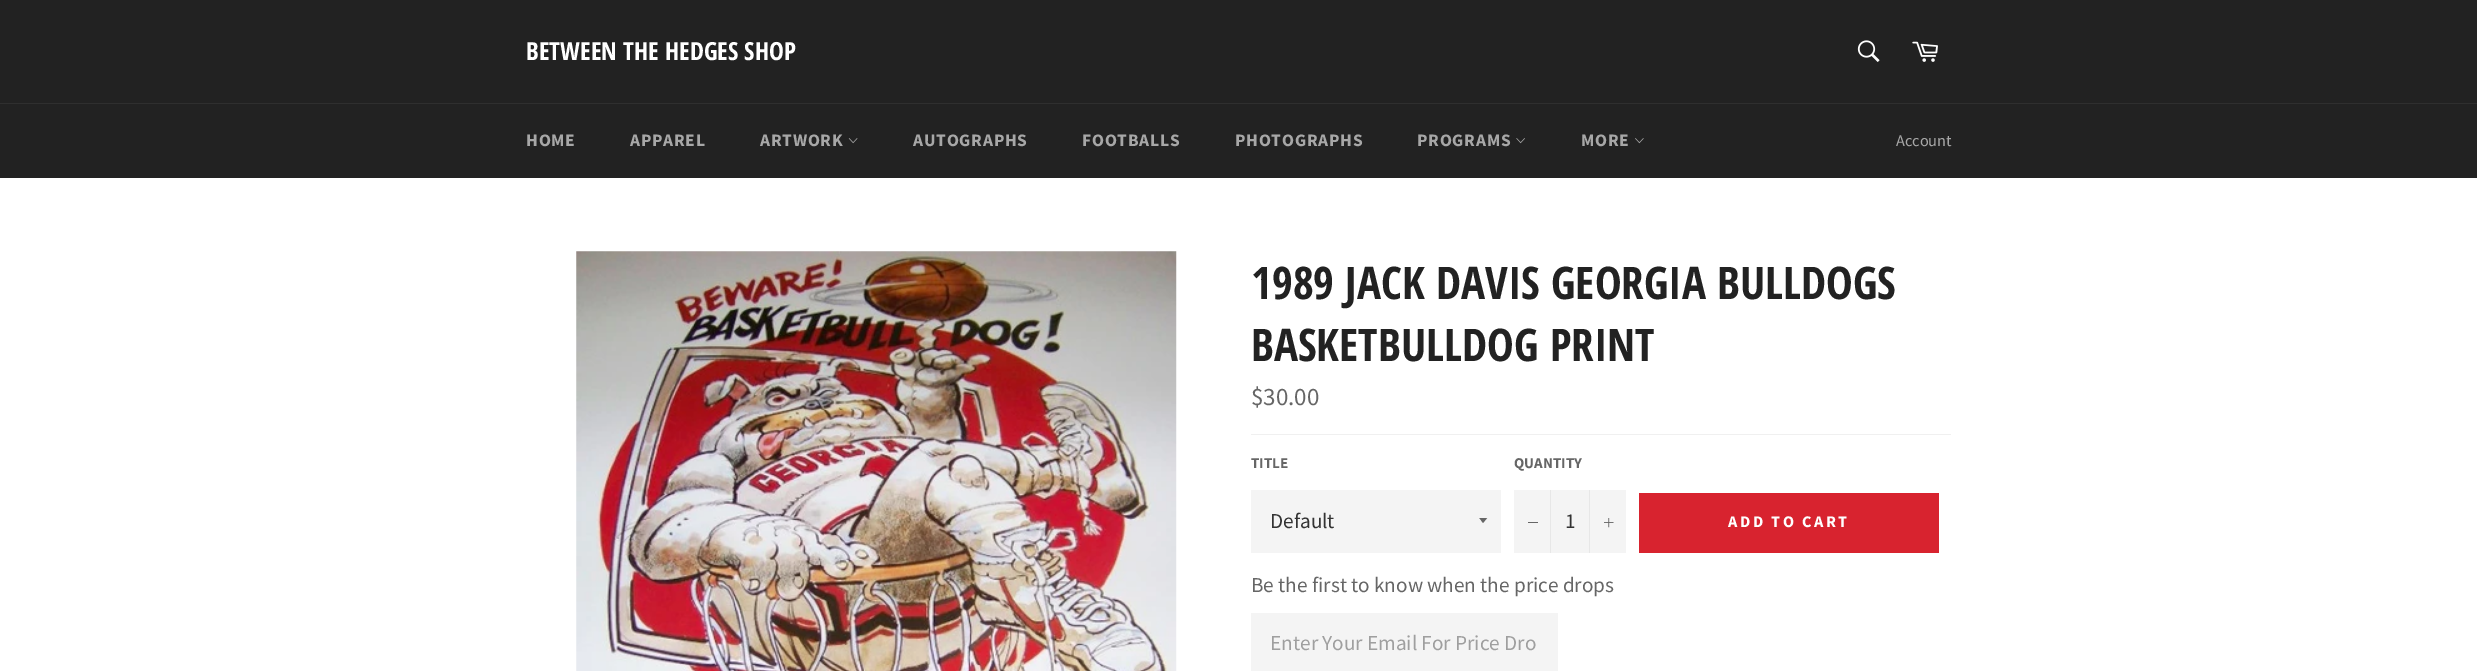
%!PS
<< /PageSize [2477 671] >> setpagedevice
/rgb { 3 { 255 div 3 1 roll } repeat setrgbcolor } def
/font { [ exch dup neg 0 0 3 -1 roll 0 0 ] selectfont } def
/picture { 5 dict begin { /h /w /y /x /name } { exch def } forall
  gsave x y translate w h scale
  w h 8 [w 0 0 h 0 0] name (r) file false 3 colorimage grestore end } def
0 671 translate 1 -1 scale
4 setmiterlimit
34 34 34 rgb
0 0 2477 671 rectfill
(img/1.rgb) 1857 40 23 22 picture
(img/2.rgb) 1912 41 26 21 picture
47 47 47 rgb
0 103 2477 1 rectfill
(img/3.rgb) 848 138 10 6 picture
(img/4.rgb) 1516 138 9 6 picture
(img/5.rgb) 1635 138 9 6 picture
255 255 255 rgb
0 178 2477 493 rectfill
(img/6.rgb) 576 251 601 420 picture
240 240 240 rgb
1251 434 700 1 rectfill
244 244 244 rgb
1251 490 250 63 rectfill
gsave
1479 518 10 6 rectclip
102 102 102 rgb
1479 517.5 moveto 1483 523 lineto 1487.5 517.5 lineto closepath fill
grestore
[
  [1514 490 112 63 244 244 244]
  [1550 490 1 63 231 231 231]
  [1528 522 10 1 102 102 102]
  [1589 490 1 63 231 231 231]
] { aload pop rgb rectfill } forall
(img/7.rgb) 1604 518 10 10 picture
216 35 47 rgb
1639 493 300 60 rectfill
244 244 244 rgb
1251 613 307 58 rectfill
/OpenSansCondensed-Bold 25 font
255 255 255 rgb
526 60 moveto (BETWEEN THE HEDGES SHOP) show
/SourceSansPro-Bold 17.5 font
167 167 167 rgb
526 146 moveto 0.75 0 (HOME) ashow
630 146 moveto 0.75 0 (APPAREL) ashow
760 146 moveto 0.75 0 (ARTWORK) ashow
913 146 moveto 0.75 0 (AUTOGRAPHS) ashow
1082 146 moveto 0.75 0 (FOOTBALLS) ashow
1235 146 moveto 0.75 0 (PHOTOGRAPHS) ashow
1417 146 moveto 0.75 0 (PROGRAMS) ashow
1581 146 moveto 0.75 0 (MORE) ashow
/SourceSansPro-Regular 16.25 font
1896 146 moveto (Account) show
/OpenSansCondensed-Bold 45 font
34 34 34 rgb
1251 299 moveto (1989 JACK DAVIS GEORGIA BULLDOGS) show
1251 361 moveto (BASKETBULLDOG PRINT) show
/SourceSansPro-Regular 25 font
102 102 102 rgb
1251 405 moveto ($30.00) show
/SourceSansPro-Bold 15 font
1251 468 moveto (TITLE) show
/SourceSansPro-Regular 21.25 font
51 51 51 rgb
1270 528 moveto (Default) show
/SourceSansPro-Bold 15 font
102 102 102 rgb
1514 468 moveto (QUANTITY) show
/SourceSansPro-Regular 21.25 font
51 51 51 rgb
1565 528 moveto (1) show
/SourceSansPro-Bold 16.25 font
255 255 255 rgb
1728 527 moveto 2.5 0 (ADD TO CART) ashow
/SourceSansPro-Regular 21.25 font
102 102 102 rgb
1251 592 moveto (Be the first to know when the price drops) show
159 159 159 rgb
1270 650 moveto (Enter Your Email For Price Dro) show
showpage
